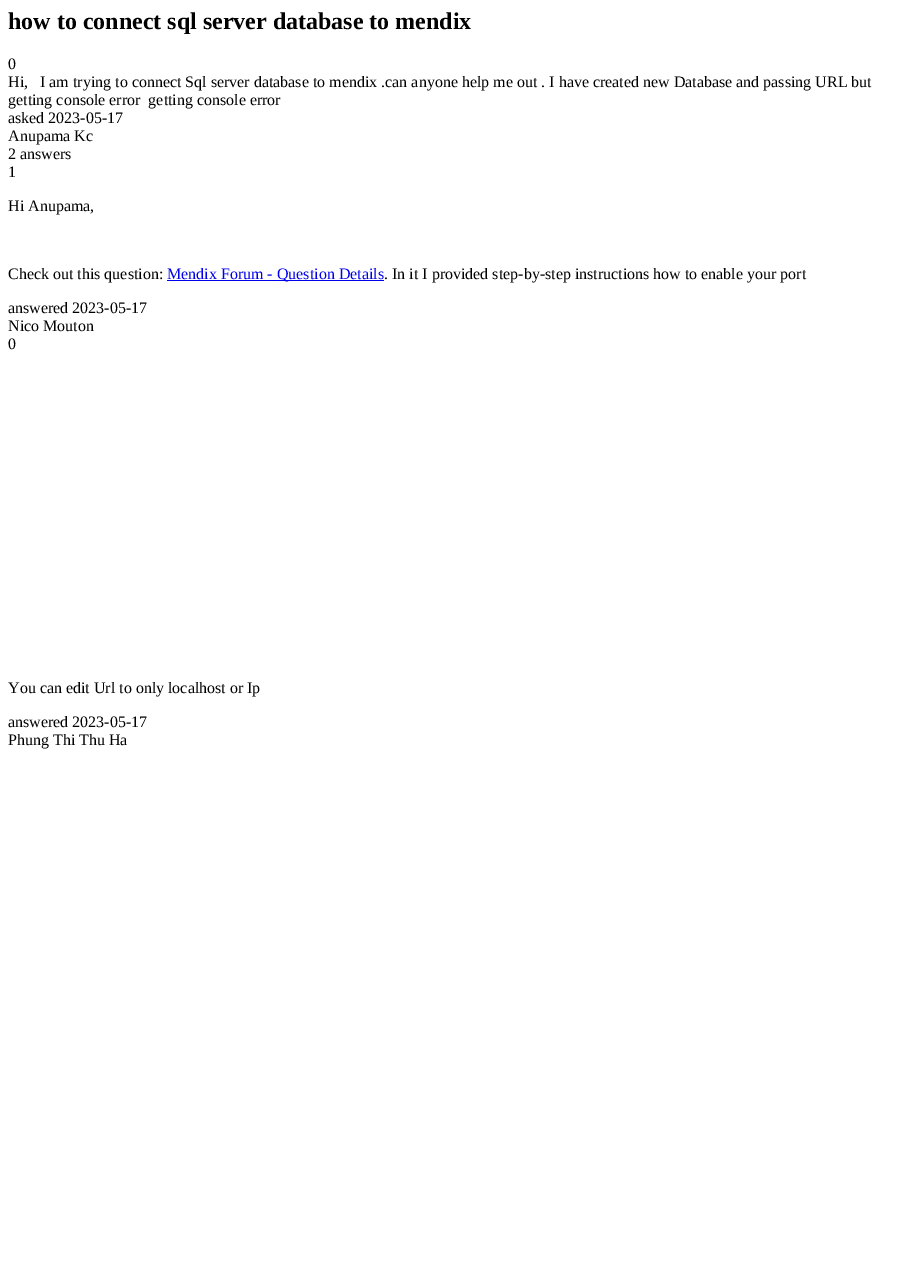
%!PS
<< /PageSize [909 1281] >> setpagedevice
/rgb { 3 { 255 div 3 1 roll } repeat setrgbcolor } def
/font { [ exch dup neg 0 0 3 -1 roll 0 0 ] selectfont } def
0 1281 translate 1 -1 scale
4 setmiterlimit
255 255 255 rgb
0 0 909 1281 rectfill
0 0 238 rgb
167 280 217 1 rectfill
/LiberationSerif-Bold 24 font
0 0 0 rgb
8 29 moveto (how to connect sql server database to mendix) show
/LiberationSerif-Regular 16 font
[
  [(0) 8 69]
  [(Hi,   I am trying to connect Sql server database to mendix .can anyone help me out . I have created new Database and passing URL but) 8 87]
  [(getting console error  getting console error) 8 105]
  [(asked 2023-05-17) 8 123]
  [(Anupama Kc) 8 141]
  [(2 answers) 8 159]
  [(1) 8 177]
  [(Hi Anupama,) 8 211]
  [(Check out this question:) 8 279]
] { aload pop moveto show } forall
0 0 238 rgb
167 279 moveto (Mendix Forum - Question Details) show
0 0 0 rgb
[
  [(. In it I provided step-by-step instructions how to enable your port) 384 279]
  [(answered 2023-05-17) 8 313]
  [(Nico Mouton) 8 331]
  [(0) 8 349]
  [(You can edit Url to only localhost or Ip) 8 693]
  [(answered 2023-05-17) 8 727]
  [(Phung Thi Thu Ha) 8 745]
] { aload pop moveto show } forall
showpage
